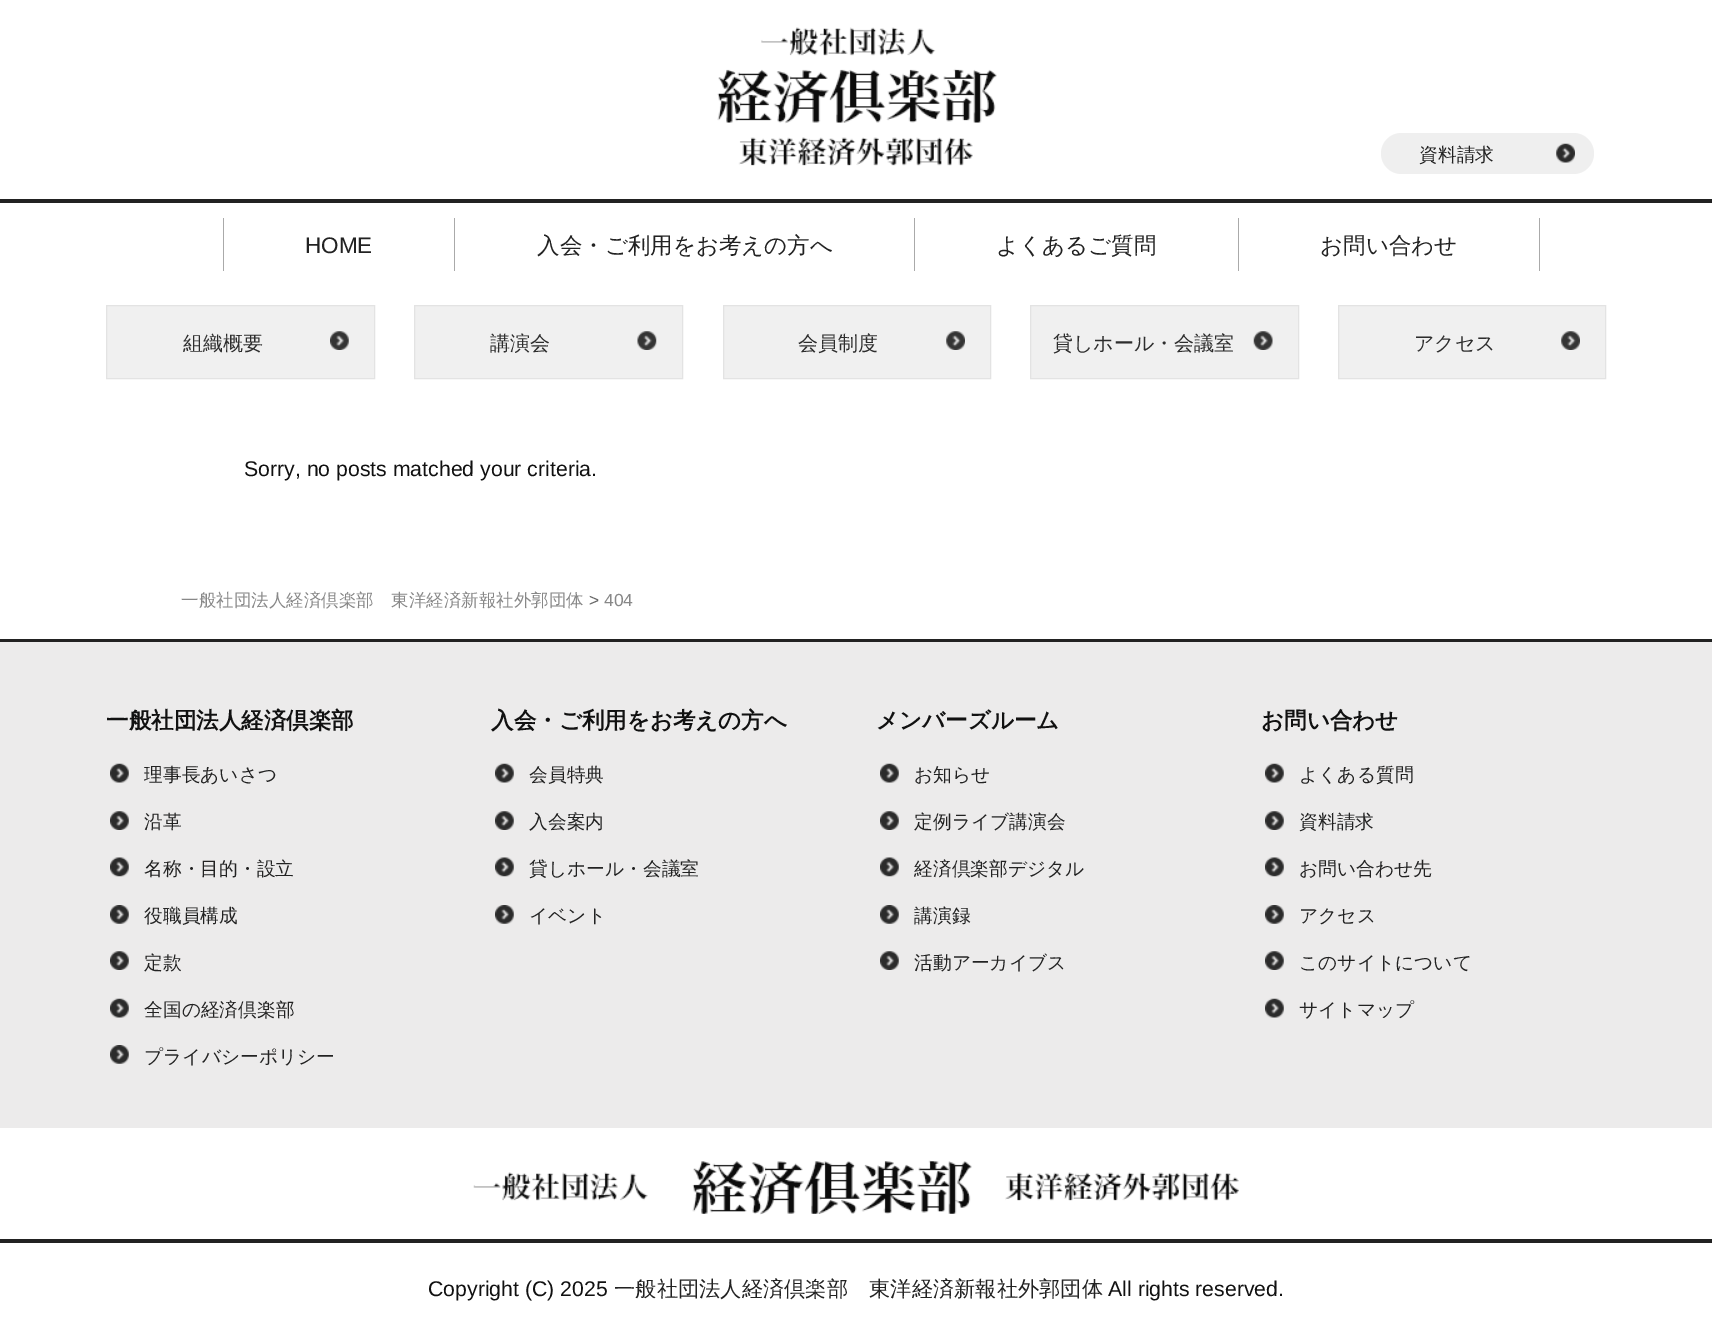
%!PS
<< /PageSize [1712 1323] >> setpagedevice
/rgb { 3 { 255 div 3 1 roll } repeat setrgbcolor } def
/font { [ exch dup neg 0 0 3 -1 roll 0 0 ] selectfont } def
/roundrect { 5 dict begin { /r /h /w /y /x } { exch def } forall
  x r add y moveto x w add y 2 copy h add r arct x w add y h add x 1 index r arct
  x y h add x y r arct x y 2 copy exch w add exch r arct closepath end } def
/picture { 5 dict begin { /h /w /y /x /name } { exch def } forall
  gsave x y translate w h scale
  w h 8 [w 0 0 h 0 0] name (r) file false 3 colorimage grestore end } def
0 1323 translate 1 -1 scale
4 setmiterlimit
255 255 255 rgb
0 0 1712 1323 rectfill
34 34 34 rgb
0 199 1712 4 rectfill
(img/1.rgb) 717 27 280 139 picture
239 239 239 rgb
1381 133 213 41 20.5 roundrect fill
(img/2.rgb) 1556 143 19 20 picture
[
  [454 218 1 53 170 170 170]
  [223 218 1 53 170 170 170]
  [914 218 1 53 170 170 170]
  [1238 218 1 53 170 170 170]
  [1539 218 1 53 170 170 170]
  [107 306 267 72 240 240 240]
] { aload pop rgb rectfill } forall
(img/3.rgb) 330 331 19 19 picture
227 227 227 rgb
106.5 305.5 268 73 rectstroke
240 240 240 rgb
415 306 267 72 rectfill
(img/4.rgb) 637 331 20 19 picture
227 227 227 rgb
414.5 305.5 268 73 rectstroke
240 240 240 rgb
724 306 266 72 rectfill
(img/5.rgb) 946 331 19 19 picture
227 227 227 rgb
723.5 305.5 267 73 rectstroke
240 240 240 rgb
1031 306 267 72 rectfill
(img/6.rgb) 1253 331 20 19 picture
227 227 227 rgb
1030.5 305.5 268 73 rectstroke
240 240 240 rgb
1339 306 266 72 rectfill
(img/7.rgb) 1561 331 19 19 picture
227 227 227 rgb
1338.5 305.5 267 73 rectstroke
236 235 235 rgb
0 642 1712 486 rectfill
34 34 34 rgb
0 639 1712 3 rectfill
(img/8.rgb) 110 763 19 20 picture
(img/9.rgb) 110 811 19 19 picture
(img/10.rgb) 110 857 19 20 picture
(img/11.rgb) 110 905 19 19 picture
(img/9.rgb) 110 951 19 19 picture
(img/8.rgb) 110 998 19 20 picture
(img/11.rgb) 110 1045 19 19 picture
(img/12.rgb) 495 763 19 20 picture
(img/13.rgb) 495 811 19 19 picture
(img/14.rgb) 495 857 19 20 picture
(img/15.rgb) 495 905 19 19 picture
(img/8.rgb) 880 763 19 20 picture
(img/9.rgb) 880 811 19 19 picture
(img/10.rgb) 880 857 19 20 picture
(img/11.rgb) 880 905 19 19 picture
(img/9.rgb) 880 951 19 19 picture
(img/8.rgb) 1265 763 19 20 picture
(img/9.rgb) 1265 811 19 19 picture
(img/10.rgb) 1265 857 19 20 picture
(img/11.rgb) 1265 905 19 19 picture
(img/9.rgb) 1265 951 19 19 picture
(img/8.rgb) 1265 998 19 20 picture
0 1239 1712 4 rectfill
(img/16.rgb) 473 1160 766 55 picture
/WenQuanYiZenHei-Medium 18.75 font
1419 161 moveto (資料請求) show
/LiberationSans-Regular 22.5 font
305 253 moveto (HOME) show
/WenQuanYiZenHei-Medium 22.5 font
[
  [(入会・ご利用をお考えの方へ) 537 253]
  [(よくあるご質問) 996 253]
  [(お問い合わせ) 1320 253]
] { aload pop moveto show } forall
/WenQuanYiZenHei-Medium 20 font
45 45 45 rgb
[
  [(組織概要) 183 350]
  [(講演会) 490 350]
  [(会員制度) 798 350]
  [(貸しホール・会議室) 1053 350]
  [(アクセス) 1414 350]
] { aload pop moveto show } forall
/LiberationSans-Regular 21.25 font
17 17 17 rgb
244 476 moveto (Sorry, no posts matched your criteria.) show
/WenQuanYiZenHei-Medium 17.5 font
136 136 136 rgb
181 606 moveto (一般社団法人経済倶楽部　東洋経済新報社外郭団体) show
/LiberationSans-Regular 17.5 font
102 102 102 rgb
589 606 moveto (>) show
136 136 136 rgb
604 606 moveto (404) show
/WenQuanYiZenHei-Bold 22.5 font
17 17 17 rgb
106 728 moveto (一般社団法人経済倶楽部) show
/WenQuanYiZenHei-Medium 18.75 font
34 34 34 rgb
[
  [(理事長あいさつ) 144 781]
  [(沿革) 144 828]
  [(名称・目的・設立) 144 875]
  [(役職員構成) 144 922]
  [(定款) 144 969]
  [(全国の経済倶楽部) 144 1016]
  [(プライバシーポリシー) 144 1063]
] { aload pop moveto show } forall
/WenQuanYiZenHei-Bold 22.5 font
17 17 17 rgb
491 728 moveto (入会・ご利用をお考えの方へ) show
/WenQuanYiZenHei-Medium 18.75 font
34 34 34 rgb
[
  [(会員特典) 529 781]
  [(入会案内) 529 828]
  [(貸しホール・会議室) 529 875]
  [(イベント) 529 922]
] { aload pop moveto show } forall
/WenQuanYiZenHei-Bold 22.5 font
17 17 17 rgb
876 728 moveto (メンバーズルーム) show
/WenQuanYiZenHei-Medium 18.75 font
34 34 34 rgb
[
  [(お知らせ) 914 781]
  [(定例ライブ講演会) 914 828]
  [(経済倶楽部デジタル) 914 875]
  [(講演録) 914 922]
  [(活動アーカイブス) 914 969]
] { aload pop moveto show } forall
/WenQuanYiZenHei-Bold 22.5 font
17 17 17 rgb
1261 728 moveto (お問い合わせ) show
/WenQuanYiZenHei-Medium 18.75 font
34 34 34 rgb
[
  [(よくある質問) 1299 781]
  [(資料請求) 1299 828]
  [(お問い合わせ先) 1299 875]
  [(アクセス) 1299 922]
  [(このサイトについて) 1299 969]
  [(サイトマップ) 1299 1016]
] { aload pop moveto show } forall
/LiberationSans-Regular 21.25 font
17 17 17 rgb
428 1296 moveto (Copyright \(C\) 2025) show
/WenQuanYiZenHei-Medium 21.25 font
34 34 34 rgb
614 1296 moveto (一般社団法人経済倶楽部　東洋経済新報社外郭団体) show
/LiberationSans-Regular 21.25 font
17 17 17 rgb
1108 1296 moveto (All rights reserved.) show
showpage
